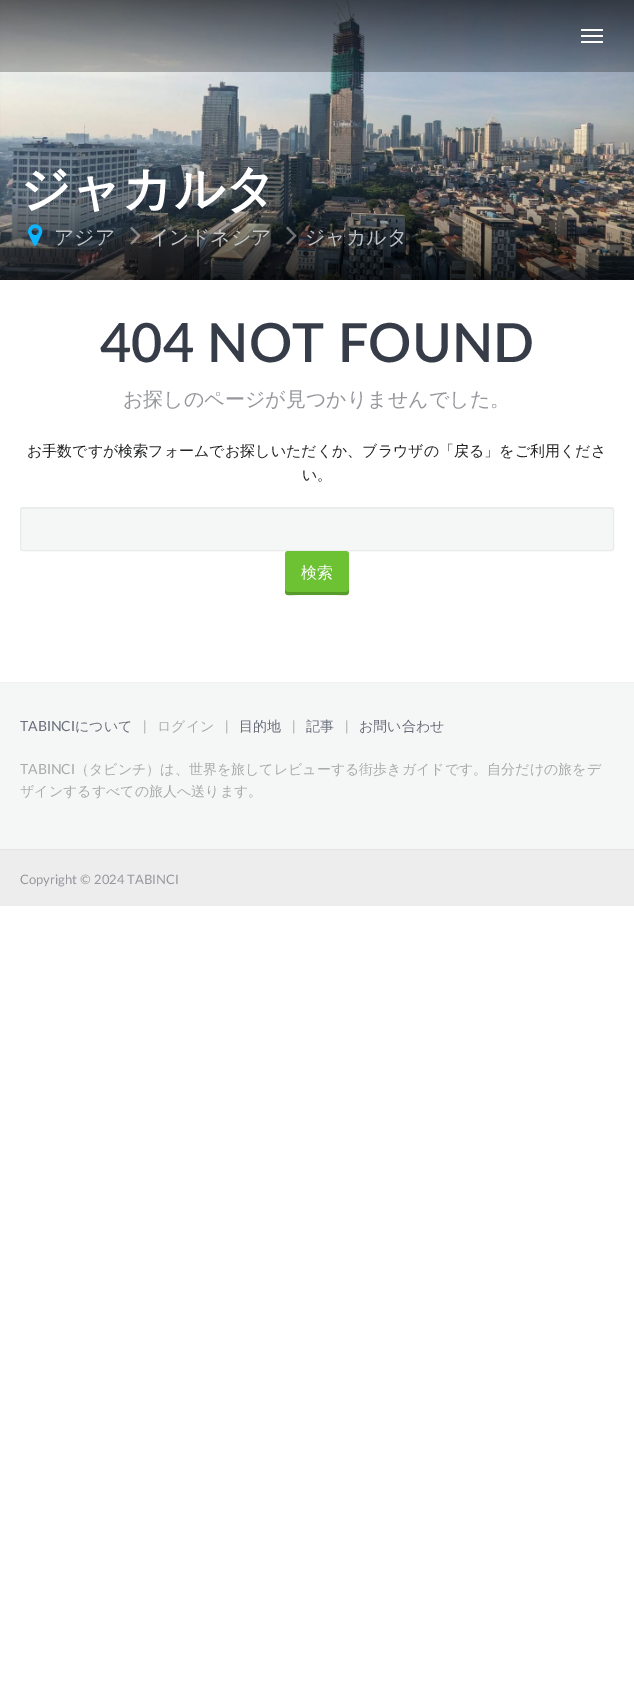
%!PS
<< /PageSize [634 1702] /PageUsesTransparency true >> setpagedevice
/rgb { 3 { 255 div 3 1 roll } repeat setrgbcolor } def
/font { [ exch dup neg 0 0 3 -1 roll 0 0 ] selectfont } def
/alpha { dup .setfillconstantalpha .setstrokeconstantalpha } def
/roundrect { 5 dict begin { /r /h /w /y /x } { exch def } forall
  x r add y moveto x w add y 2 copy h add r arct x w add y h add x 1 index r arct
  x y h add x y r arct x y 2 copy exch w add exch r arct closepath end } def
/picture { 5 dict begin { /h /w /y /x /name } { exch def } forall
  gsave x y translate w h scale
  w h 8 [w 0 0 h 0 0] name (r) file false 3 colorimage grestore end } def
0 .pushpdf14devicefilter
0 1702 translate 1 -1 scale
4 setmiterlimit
255 255 255 rgb
0 0 634 1702 rectfill
(img/1.rgb) 0 0 634 280 picture
0.26 alpha
0 0 0 rgb
0 0 634 72 rectfill
1 alpha
255 255 255 rgb
581 29 22 2 1 roundrect fill
581 35 22 2 1 roundrect fill
581 41 22 2 1 roundrect fill
(img/2.rgb) 28 224 15 22 picture
(img/3.rgb) 130 226 11 19 picture
(img/4.rgb) 286 226 11 19 picture
245 246 246 rgb
20 507 594 44 3 roundrect fill
236 237 237 rgb
23 509 moveto 611 509 lineto 612 509 613 510 613 511 curveto 613 510 613 508 611 508 curveto 23 508 lineto 21 509 lineto 21 511 lineto 21 510 22 509 23 509 curveto closepath fill
233 234 235 rgb
20.5 507.5 593 43 2.5 roundrect stroke
109 194 52 rgb
285 551 64 44 3 roundrect fill
0.2 alpha
0 0 0 rgb
285 589 moveto 285 598 289 595 298 595 curveto 336 595 lineto 345 595 349 598 349 589 curveto 349 591 348 592 346 592 curveto 288 592 lineto 286 592 285 591 285 589 curveto closepath fill
1 alpha
[
  [0 682 634 1 241 241 241]
  [0 683 634 166 245 246 246]
  [0 850 634 56 237 237 237]
  [0 849 634 1 228 228 228]
] { aload pop rgb rectfill } forall
/WenQuanYiZenHei-Bold 50 font
255 255 255 rgb
20 206 moveto (ジャカルタ) show
/WenQuanYiZenHei-Medium 20 font
191 194 197 rgb
54 244 moveto (アジア) show
199 199 198 rgb
149 244 moveto (インドネシア) show
191 194 197 rgb
305 244 moveto (ジャカルタ) show
/Lato-SemiBold 54 font
54 60 72 rgb
100 362 moveto (404 NOT FOUND) show
/WenQuanYiZenHei-Medium 20 font
149 151 156 rgb
123 406 moveto (お探しのページが見つかりませんでした。) show
/WenQuanYiZenHei-Medium 15 font
34 35 36 rgb
27 456 moveto (お手数ですが検索フォームでお探しいただくか、ブラウザの「戻る」をご利用くださ) show
302 480 moveto (い。) show
/WenQuanYiZenHei-Medium 16 font
255 255 255 rgb
301 578 moveto (検索) show
/Lato-Regular 14 font
105 111 122 rgb
20 731 moveto (TABINCI) show
/WenQuanYiZenHei-Medium 14 font
75 731 moveto (について) show
/Lato-Regular 14 font
170 170 170 rgb
143 731 moveto (|) show
/WenQuanYiZenHei-Medium 14 font
157 731 moveto (ログイン) show
/Lato-Regular 14 font
225 731 moveto (|) show
/WenQuanYiZenHei-Medium 14 font
105 111 122 rgb
239 731 moveto (目的地) show
/Lato-Regular 14 font
170 170 170 rgb
292 731 moveto (|) show
/WenQuanYiZenHei-Medium 14 font
105 111 122 rgb
306 731 moveto (記事) show
/Lato-Regular 14 font
170 170 170 rgb
345 731 moveto (|) show
/WenQuanYiZenHei-Medium 14 font
105 111 122 rgb
359 731 moveto (お問い合わせ) show
/Lato-Regular 14 font
170 170 170 rgb
20 774 moveto (TABINCI) show
/WenQuanYiZenHei-Medium 14 font
75 774 moveto (（タビンチ）は、世界を旅してレビューする街歩きガイドです。自分だけの旅をデ) show
20 796 moveto (ザインするすべての旅人へ送ります。) show
/Lato-Regular 13 font
149 151 156 rgb
20 884 moveto (Copyright © 2024 TABINCI) show
.poppdf14devicefilter showpage
